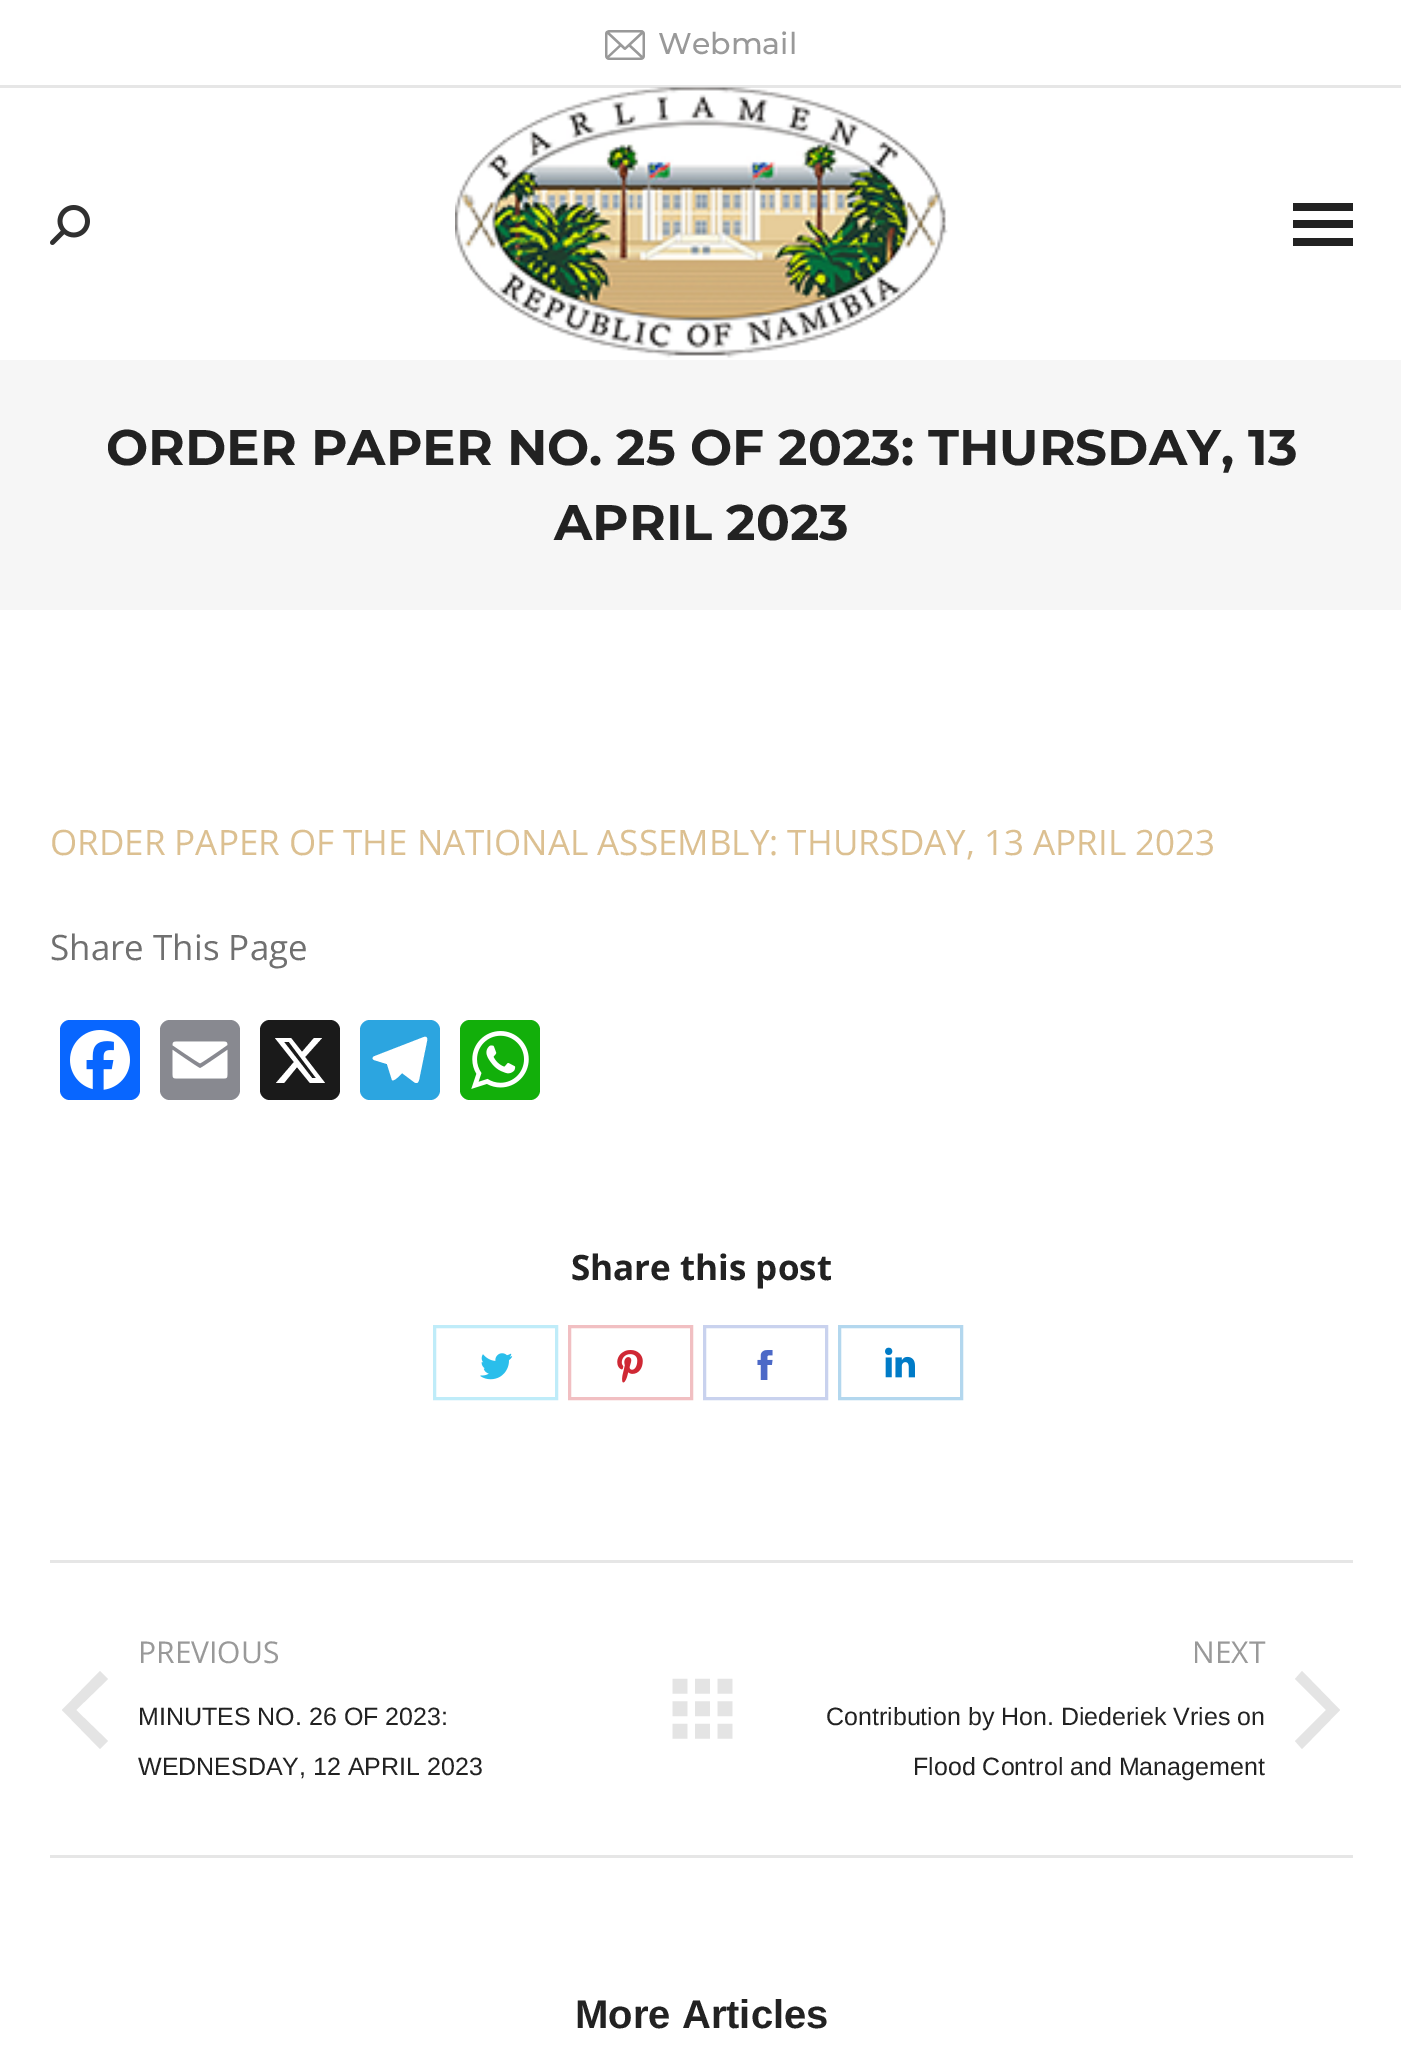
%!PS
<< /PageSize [1401 2064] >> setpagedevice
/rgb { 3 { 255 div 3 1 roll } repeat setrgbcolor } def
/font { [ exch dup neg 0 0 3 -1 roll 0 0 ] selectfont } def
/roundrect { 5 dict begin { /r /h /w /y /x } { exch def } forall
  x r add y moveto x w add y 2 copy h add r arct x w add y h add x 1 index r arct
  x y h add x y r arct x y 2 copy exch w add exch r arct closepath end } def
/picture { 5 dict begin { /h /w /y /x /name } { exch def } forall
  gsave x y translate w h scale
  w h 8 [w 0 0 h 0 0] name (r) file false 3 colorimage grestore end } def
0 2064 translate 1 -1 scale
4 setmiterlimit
255 255 255 rgb
0 0 1401 2064 rectfill
(img/1.rgb) 605 30 40 30 picture
230 230 230 rgb
0 85 1401 3 rectfill
(img/2.rgb) 50 205 40 40 picture
(img/3.rgb) 455 87 493 271 picture
[
  [1293 203 60 8 34 34 34]
  [1293 220 60 8 34 34 34]
  [1293 238 60 8 34 34 34]
  [0 360 1401 250 246 246 246]
] { aload pop rgb rectfill } forall
8 102 255 rgb
60 1020 80 80 10 roundrect fill
(img/4.rgb) 70 1030 60 60 picture
136 137 144 rgb
160 1020 80 80 10 roundrect fill
(img/5.rgb) 172 1041 56 38 picture
26 26 26 rgb
260 1020 80 80 10 roundrect fill
255 255 255 rgb
314 1038 moveto 322 1038 lineto 305 1057 lineto 325 1083 lineto 310 1083 lineto 297 1067 lineto 284 1083 lineto 276 1083 lineto 294 1062 lineto 275 1038 lineto 291 1038 lineto 302 1052 lineto closepath 312 1078 moveto 316 1078 lineto 289 1042 lineto 284 1042 lineto closepath fill
44 165 224 rgb
360 1020 80 80 10 roundrect fill
255 255 255 rgb
424 1037 moveto 375 1056 lineto 372 1057 372 1059 374 1060 curveto 387 1064 lineto 392 1080 lineto 394 1082 401 1074 402 1073 curveto 414 1082 lineto 417 1084 418 1083 419 1080 curveto 427 1041 lineto 428 1038 426 1036 424 1037 curveto closepath fill
18 175 10 rgb
460 1020 80 80 10 roundrect fill
(img/6.rgb) 471 1031 58 58 picture
191 236 249 rgb
3 setlinewidth
434.5 1326.5 122 72 rectstroke
(img/7.rgb) 480 1353 33 27 picture
241 191 194 rgb
569.5 1326.5 122 72 rectstroke
(img/8.rgb) 617 1350 26 33 picture
201 210 238 rgb
704.5 1326.5 122 72 rectstroke
(img/9.rgb) 757 1350 16 30 picture
179 215 238 rgb
839.5 1326.5 122 72 rectstroke
(img/10.rgb) 885 1347 30 31 picture
230 230 230 rgb
50 1560 1303 3 rectfill
50 1855 1303 3 rectfill
228 228 228 rgb
76 1710 moveto 108 1679 lineto 100 1671 lineto 62 1710 lineto 100 1749 lineto 108 1741 lineto closepath fill
(img/11.rgb) 672 1678 61 61 picture
1326 1710 moveto 1295 1679 lineto 1302 1671 lineto 1340 1710 lineto 1302 1749 lineto 1295 1741 lineto closepath fill
/Montserrat-Medium 30 font
153 153 153 rgb
658 54 moveto (Webmail) show
/Montserrat-Bold 50 font
34 34 34 rgb
106 465 moveto (ORDER PAPER NO. 25 OF 2023: THURSDAY, 13) show
554 540 moveto (APRIL 2023) show
/OpenSans-Regular 35 font
220 192 145 rgb
50 855 moveto (ORDER PAPER OF THE NATIONAL ASSEMBLY: THURSDAY, 13 APRIL 2023) show
112 112 112 rgb
50 960 moveto (Share This Page) show
/OpenSans-Bold 35 font
34 34 34 rgb
571 1280 moveto (Share this post) show
/OpenSans-Regular 30 font
153 153 153 rgb
138 1663 moveto (PREVIOUS) show
/LiberationSans-Regular 25 font
34 34 34 rgb
138 1725 moveto (MINUTES NO. 26 OF 2023:) show
138 1775 moveto (WEDNESDAY, 12 APRIL 2023) show
/OpenSans-Regular 30 font
153 153 153 rgb
1192 1663 moveto (NEXT) show
/LiberationSans-Regular 25 font
34 34 34 rgb
826 1725 moveto (Contribution by Hon. Diederiek Vries on) show
913 1775 moveto (Flood Control and Management) show
/LiberationSans-Bold 40 font
575 2028 moveto (More Articles) show
showpage
